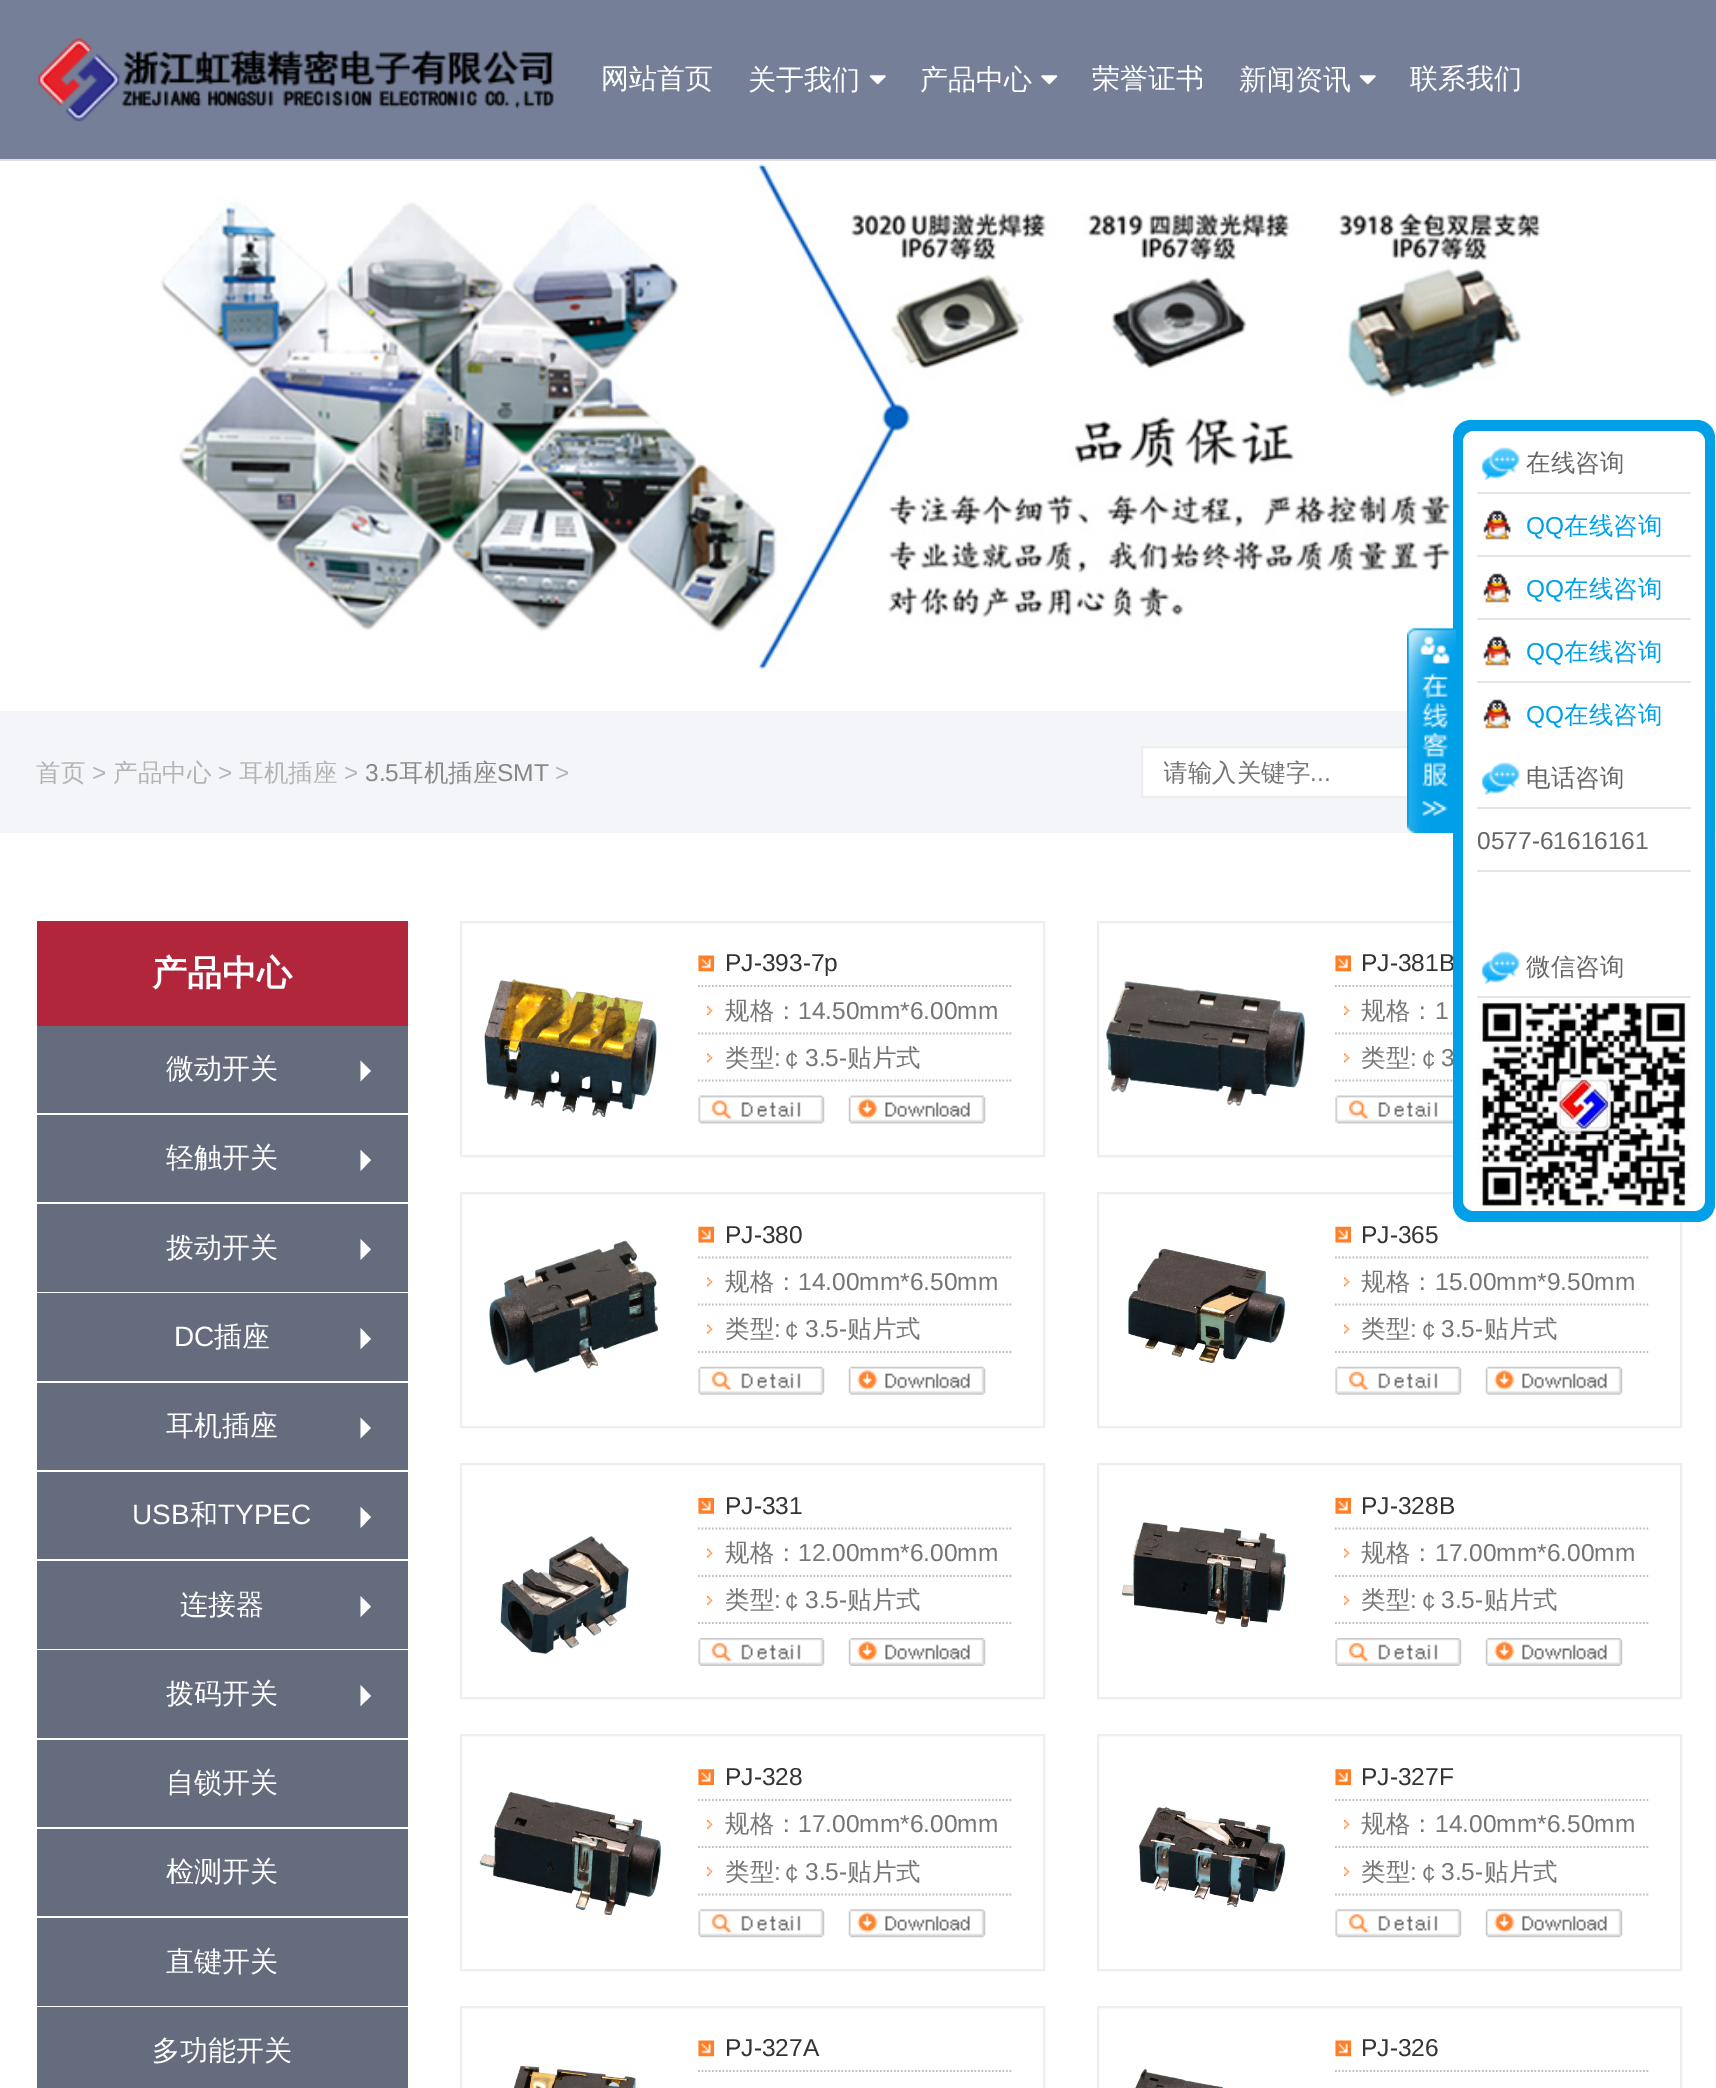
%!PS
<< /PageSize [1716 2088] >> setpagedevice
/rgb { 3 { 255 div 3 1 roll } repeat setrgbcolor } def
/font { [ exch dup neg 0 0 3 -1 roll 0 0 ] selectfont } def
/roundrect { 5 dict begin { /r /h /w /y /x } { exch def } forall
  x r add y moveto x w add y 2 copy h add r arct x w add y h add x 1 index r arct
  x y h add x y r arct x y 2 copy exch w add exch r arct closepath end } def
/picture { 5 dict begin { /h /w /y /x /name } { exch def } forall
  gsave x y translate w h scale
  w h 8 [w 0 0 h 0 0] name (r) file false 3 colorimage grestore end } def
0 2088 translate 1 -1 scale
4 setmiterlimit
255 255 255 rgb
0 0 1716 2088 rectfill
117 127 152 rgb
0 0 1716 159 rectfill
224 224 224 rgb
0 159 1716 2 rectfill
(img/1.rgb) 38 38 516 84 picture
(img/2.rgb) 869 75 17 10 picture
(img/3.rgb) 1041 75 17 10 picture
(img/2.rgb) 1359 75 17 10 picture
(img/4.rgb) 160 163 1380 506 picture
244 245 248 rgb
0 711 1716 122 rectfill
255 255 255 rgb
1143 748 264 48 rectfill
238 238 238 rgb
2 setlinewidth
1142 747 453 50 rectstroke
177 38 59 rgb
37 921 371 105 rectfill
101 108 125 rgb
37 1026 371 87 rectfill
255 255 255 rgb
360.5 1081.5 moveto 360.5 1060.5 lineto 371 1071 lineto closepath fill
101 108 125 rgb
37 1115 371 87 rectfill
255 255 255 rgb
360.5 1171 moveto 360.5 1150 lineto 371 1160 lineto closepath fill
101 108 125 rgb
37 1204 371 88 rectfill
255 255 255 rgb
360.5 1260 moveto 360.5 1239 lineto 371 1249.5 lineto closepath fill
101 108 125 rgb
37 1293 371 88 rectfill
255 255 255 rgb
360.5 1349 moveto 360.5 1328 lineto 371 1339 lineto closepath fill
101 108 125 rgb
37 1383 371 87 rectfill
255 255 255 rgb
360.5 1438.5 moveto 360.5 1417.5 lineto 371 1428 lineto closepath fill
101 108 125 rgb
37 1472 371 87 rectfill
255 255 255 rgb
360.5 1528 moveto 360.5 1507 lineto 371 1517 lineto closepath fill
101 108 125 rgb
37 1561 371 88 rectfill
255 255 255 rgb
360.5 1617 moveto 360.5 1596 lineto 371 1606.5 lineto closepath fill
101 108 125 rgb
37 1650 371 88 rectfill
255 255 255 rgb
360.5 1706 moveto 360.5 1685 lineto 371 1696 lineto closepath fill
[
  [37 1740 371 87 101 108 125]
  [37 1829 371 87 101 108 125]
  [37 1918 371 88 101 108 125]
  [37 2007 371 81 101 108 125]
] { aload pop rgb rectfill } forall
238 238 238 rgb
461 922 583 234 rectstroke
(img/9.rgb) 484 979 173 138 picture
(img/10.rgb) 698 955 16 17 picture
192 192 192 rgb
1.8 setlinewidth
[1.75 1.75] 0 setdash
698 986 moveto 1013 986 lineto stroke
(img/11.rgb) 707 1006 6 9 picture
698 1033.5 moveto 1013 1033.5 lineto stroke
(img/12.rgb) 707 1053 6 10 picture
698 1080.5 moveto 1013 1080.5 lineto stroke
(img/13.rgb) 698 1095 127 29 picture
(img/14.rgb) 848 1095 138 29 picture
238 238 238 rgb
2 setlinewidth
[] 0 setdash
1098 922 583 234 rectstroke
(img/15.rgb) 1106 981 200 126 picture
(img/16.rgb) 1335 955 16 17 picture
192 192 192 rgb
1.8 setlinewidth
[1.75 1.75] 0 setdash
1335 986 moveto 1650 986 lineto stroke
(img/11.rgb) 1344 1006 6 9 picture
1335 1033.5 moveto 1650 1033.5 lineto stroke
(img/12.rgb) 1344 1053 6 10 picture
1335 1080.5 moveto 1650 1080.5 lineto stroke
(img/17.rgb) 1335 1095 118 29 picture
238 238 238 rgb
2 setlinewidth
[] 0 setdash
461 1193 583 234 rectstroke
(img/18.rgb) 489 1240 170 133 picture
(img/19.rgb) 698 1226 16 17 picture
192 192 192 rgb
1.8 setlinewidth
[1.75 1.75] 0 setdash
698 1257.5 moveto 1013 1257.5 lineto stroke
(img/12.rgb) 707 1277 6 10 picture
698 1304.5 moveto 1013 1304.5 lineto stroke
(img/20.rgb) 707 1324 6 10 picture
698 1352 moveto 1013 1352 lineto stroke
(img/21.rgb) 698 1366 127 29 picture
(img/22.rgb) 848 1366 138 29 picture
238 238 238 rgb
2 setlinewidth
[] 0 setdash
1098 1193 583 234 rectstroke
(img/23.rgb) 1128 1248 158 115 picture
(img/24.rgb) 1335 1226 16 17 picture
192 192 192 rgb
1.8 setlinewidth
[1.75 1.75] 0 setdash
1335 1257.5 moveto 1650 1257.5 lineto stroke
(img/12.rgb) 1344 1277 6 10 picture
1335 1304.5 moveto 1650 1304.5 lineto stroke
(img/20.rgb) 1344 1324 6 10 picture
1335 1352 moveto 1650 1352 lineto stroke
(img/25.rgb) 1335 1366 127 29 picture
(img/22.rgb) 1485 1366 138 29 picture
238 238 238 rgb
2 setlinewidth
[] 0 setdash
461 1464 583 234 rectstroke
(img/26.rgb) 500 1535 129 119 picture
(img/27.rgb) 698 1498 16 16 picture
192 192 192 rgb
1.8 setlinewidth
[1.75 1.75] 0 setdash
698 1528.5 moveto 1013 1528.5 lineto stroke
(img/20.rgb) 707 1548 6 10 picture
698 1576 moveto 1013 1576 lineto stroke
(img/28.rgb) 707 1596 6 9 picture
698 1623 moveto 1013 1623 lineto stroke
(img/29.rgb) 698 1638 127 28 picture
(img/30.rgb) 848 1638 138 28 picture
238 238 238 rgb
2 setlinewidth
[] 0 setdash
1098 1464 583 234 rectstroke
(img/31.rgb) 1121 1522 165 106 picture
(img/32.rgb) 1335 1498 16 16 picture
192 192 192 rgb
1.8 setlinewidth
[1.75 1.75] 0 setdash
1335 1528.5 moveto 1650 1528.5 lineto stroke
(img/20.rgb) 1344 1548 6 10 picture
1335 1576 moveto 1650 1576 lineto stroke
(img/28.rgb) 1344 1596 6 9 picture
1335 1623 moveto 1650 1623 lineto stroke
(img/33.rgb) 1335 1638 127 28 picture
(img/30.rgb) 1485 1638 138 28 picture
238 238 238 rgb
2 setlinewidth
[] 0 setdash
461 1735 583 235 rectstroke
(img/34.rgb) 479 1791 182 125 picture
(img/35.rgb) 698 1769 16 16 picture
192 192 192 rgb
1.8 setlinewidth
[1.75 1.75] 0 setdash
698 1800 moveto 1013 1800 lineto stroke
(img/28.rgb) 707 1820 6 9 picture
698 1847 moveto 1013 1847 lineto stroke
(img/11.rgb) 707 1867 6 9 picture
698 1894.5 moveto 1013 1894.5 lineto stroke
(img/36.rgb) 698 1909 127 29 picture
(img/37.rgb) 848 1909 138 29 picture
238 238 238 rgb
2 setlinewidth
[] 0 setdash
1098 1735 583 235 rectstroke
(img/38.rgb) 1139 1807 147 101 picture
(img/39.rgb) 1335 1769 16 16 picture
192 192 192 rgb
1.8 setlinewidth
[1.75 1.75] 0 setdash
1335 1800 moveto 1650 1800 lineto stroke
(img/28.rgb) 1344 1820 6 9 picture
1335 1847 moveto 1650 1847 lineto stroke
(img/11.rgb) 1344 1867 6 9 picture
1335 1894.5 moveto 1650 1894.5 lineto stroke
(img/40.rgb) 1335 1909 127 29 picture
(img/37.rgb) 1485 1909 138 29 picture
238 238 238 rgb
2 setlinewidth
[] 0 setdash
461 2007 583 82 rectstroke
(img/10.rgb) 698 2040 16 17 picture
192 192 192 rgb
1.8 setlinewidth
[1.75 1.75] 0 setdash
698 2071 moveto 1013 2071 lineto stroke
(img/41.rgb) 514 2065 122 23 picture
238 238 238 rgb
2 setlinewidth
[] 0 setdash
1098 2007 583 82 rectstroke
(img/16.rgb) 1335 2040 16 17 picture
192 192 192 rgb
1.8 setlinewidth
[1.75 1.75] 0 setdash
1335 2071 moveto 1650 2071 lineto stroke
(img/42.rgb) 1135 2068 88 20 picture
/WenQuanYiZenHei-Medium 28 font
255 255 255 rgb
[
  [(网站首页) 601 88]
  [(关于我们) 748 89]
  [(产品中心) 920 89]
  [(荣誉证书) 1092 88]
  [(新闻资讯) 1239 89]
  [(联系我们) 1410 88]
] { aload pop moveto show } forall
/WenQuanYiZenHei-Medium 24.5 font
180 180 180 rgb
36 781 moveto (首页) show
/LiberationSans-Regular 24.5 font
92 781 moveto (>) show
/WenQuanYiZenHei-Medium 24.5 font
113 781 moveto (产品中心) show
/LiberationSans-Regular 24.5 font
218 781 moveto (>) show
/WenQuanYiZenHei-Medium 24.5 font
239 781 moveto (耳机插座) show
/LiberationSans-Regular 24.5 font
344 781 moveto (>) show
136 136 136 rgb
365 781 moveto (3.5) show
/WenQuanYiZenHei-Medium 24.5 font
399 781 moveto (耳机插座) show
/LiberationSans-Regular 24.5 font
497 781 moveto (SMT) show
180 180 180 rgb
555 781 moveto (>) show
gsave
1164 758 409 31 rectclip
/WenQuanYiZenHei-Medium 24.5 font
117 117 117 rgb
1163 781 moveto (请输入关键字) show
grestore
117 117 117 rgb
1310 781 moveto (...) show
/WenQuanYiZenHei-Bold 35 font
255 255 255 rgb
152 985 moveto (产品中心) show
/WenQuanYiZenHei-Medium 28 font
[
  [(微动开关) 166 1078]
  [(轻触开关) 166 1167]
  [(拨动开关) 166 1257]
] { aload pop moveto show } forall
/LiberationSans-Regular 28 font
174 1346 moveto (DC) show
/WenQuanYiZenHei-Medium 28 font
214 1346 moveto (插座) show
166 1435 moveto (耳机插座) show
/LiberationSans-Regular 28 font
132 1524 moveto (USB) show
/WenQuanYiZenHei-Medium 28 font
190 1524 moveto (和) show
/LiberationSans-Regular 28 font
218 1524 moveto (TYPEC) show
/WenQuanYiZenHei-Medium 28 font
[
  [(连接器) 180 1614]
  [(拨码开关) 166 1703]
  [(自锁开关) 166 1792]
  [(检测开关) 166 1881]
  [(直键开关) 166 1971]
  [(多功能开关) 152 2060]
] { aload pop moveto show } forall
/LiberationSans-Regular 24.5 font
51 51 51 rgb
725 971 moveto (PJ-393-7p) show
/WenQuanYiZenHei-Medium 24.5 font
117 117 117 rgb
725 1019 moveto (规格：) show
/LiberationSans-Regular 24.5 font
798 1019 moveto (14.50mm*6.00mm) show
/WenQuanYiZenHei-Medium 24.5 font
725 1066 moveto (类型) show
/LiberationSans-Regular 24.5 font
774 1066 moveto (:) show
/WenQuanYiZenHei-Medium 24.5 font
780 1066 moveto (￠) show
/LiberationSans-Regular 24.5 font
805 1066 moveto (3.5-) show
/WenQuanYiZenHei-Medium 24.5 font
847 1066 moveto (贴片式) show
/LiberationSans-Regular 24.5 font
51 51 51 rgb
1361 971 moveto (PJ-381B) show
/WenQuanYiZenHei-Medium 24.5 font
117 117 117 rgb
1361 1019 moveto (规格：) show
/LiberationSans-Regular 24.5 font
1435 1019 moveto (1) show
/WenQuanYiZenHei-Medium 24.5 font
1361 1066 moveto (类型) show
/LiberationSans-Regular 24.5 font
1410 1066 moveto (:) show
/WenQuanYiZenHei-Medium 24.5 font
1417 1066 moveto (￠) show
/LiberationSans-Regular 24.5 font
1441 1066 moveto (3) show
0 160 233 rgb
1453 420 262 802 18 roundrect fill
(img/5.rgb) 1407 627 49 206 picture
255 255 255 rgb
1463 431 242 780 11 roundrect fill
/WenQuanYiZenHei-Medium 24.5 font
102 102 102 rgb
1526 975 moveto (微信咨询) show
(img/6.rgb) 1481 951 39 33 picture
230 229 228 rgb
1477 996 214 2 rectfill
/LiberationSans-Regular 24.5 font
102 102 102 rgb
1477 849 moveto (0577-61616161) show
230 229 228 rgb
1477 870 214 2 rectfill
/WenQuanYiZenHei-Medium 24.5 font
102 102 102 rgb
1526 786 moveto (电话咨询) show
(img/6.rgb) 1481 762 39 33 picture
230 229 228 rgb
1477 807 214 2 rectfill
0 160 233 rgb
1564 723 moveto (在线咨询) show
/LiberationSans-Regular 24.5 font
1526 723 moveto (QQ) show
(img/7.rgb) 1483 699 28 30 picture
/WenQuanYiZenHei-Medium 24.5 font
1564 660 moveto (在线咨询) show
/LiberationSans-Regular 24.5 font
1526 660 moveto (QQ) show
(img/7.rgb) 1483 636 28 30 picture
230 229 228 rgb
1477 681 214 2 rectfill
/WenQuanYiZenHei-Medium 24.5 font
0 160 233 rgb
1564 597 moveto (在线咨询) show
/LiberationSans-Regular 24.5 font
1526 597 moveto (QQ) show
(img/7.rgb) 1483 573 28 30 picture
230 229 228 rgb
1477 618 214 2 rectfill
/WenQuanYiZenHei-Medium 24.5 font
0 160 233 rgb
1564 534 moveto (在线咨询) show
/LiberationSans-Regular 24.5 font
1526 534 moveto (QQ) show
(img/7.rgb) 1483 510 28 30 picture
230 229 228 rgb
1477 555 214 2 rectfill
/WenQuanYiZenHei-Medium 24.5 font
102 102 102 rgb
1526 471 moveto (在线咨询) show
(img/6.rgb) 1481 447 39 33 picture
230 229 228 rgb
1477 492 214 2 rectfill
(img/8.rgb) 1477 998 214 213 picture
/LiberationSans-Regular 24.5 font
51 51 51 rgb
725 1243 moveto (PJ-380) show
/WenQuanYiZenHei-Medium 24.5 font
117 117 117 rgb
725 1290 moveto (规格：) show
/LiberationSans-Regular 24.5 font
798 1290 moveto (14.00mm*6.50mm) show
/WenQuanYiZenHei-Medium 24.5 font
725 1337 moveto (类型) show
/LiberationSans-Regular 24.5 font
774 1337 moveto (:) show
/WenQuanYiZenHei-Medium 24.5 font
780 1337 moveto (￠) show
/LiberationSans-Regular 24.5 font
805 1337 moveto (3.5-) show
/WenQuanYiZenHei-Medium 24.5 font
847 1337 moveto (贴片式) show
/LiberationSans-Regular 24.5 font
51 51 51 rgb
1361 1243 moveto (PJ-365) show
/WenQuanYiZenHei-Medium 24.5 font
117 117 117 rgb
1361 1290 moveto (规格：) show
/LiberationSans-Regular 24.5 font
1435 1290 moveto (15.00mm*9.50mm) show
/WenQuanYiZenHei-Medium 24.5 font
1361 1337 moveto (类型) show
/LiberationSans-Regular 24.5 font
1410 1337 moveto (:) show
/WenQuanYiZenHei-Medium 24.5 font
1417 1337 moveto (￠) show
/LiberationSans-Regular 24.5 font
1441 1337 moveto (3.5-) show
/WenQuanYiZenHei-Medium 24.5 font
1484 1337 moveto (贴片式) show
/LiberationSans-Regular 24.5 font
51 51 51 rgb
725 1514 moveto (PJ-331) show
/WenQuanYiZenHei-Medium 24.5 font
117 117 117 rgb
725 1561 moveto (规格：) show
/LiberationSans-Regular 24.5 font
798 1561 moveto (12.00mm*6.00mm) show
/WenQuanYiZenHei-Medium 24.5 font
725 1608 moveto (类型) show
/LiberationSans-Regular 24.5 font
774 1608 moveto (:) show
/WenQuanYiZenHei-Medium 24.5 font
780 1608 moveto (￠) show
/LiberationSans-Regular 24.5 font
805 1608 moveto (3.5-) show
/WenQuanYiZenHei-Medium 24.5 font
847 1608 moveto (贴片式) show
/LiberationSans-Regular 24.5 font
51 51 51 rgb
1361 1514 moveto (PJ-328B) show
/WenQuanYiZenHei-Medium 24.5 font
117 117 117 rgb
1361 1561 moveto (规格：) show
/LiberationSans-Regular 24.5 font
1435 1561 moveto (17.00mm*6.00mm) show
/WenQuanYiZenHei-Medium 24.5 font
1361 1608 moveto (类型) show
/LiberationSans-Regular 24.5 font
1410 1608 moveto (:) show
/WenQuanYiZenHei-Medium 24.5 font
1417 1608 moveto (￠) show
/LiberationSans-Regular 24.5 font
1441 1608 moveto (3.5-) show
/WenQuanYiZenHei-Medium 24.5 font
1484 1608 moveto (贴片式) show
/LiberationSans-Regular 24.5 font
51 51 51 rgb
725 1785 moveto (PJ-328) show
/WenQuanYiZenHei-Medium 24.5 font
117 117 117 rgb
725 1832 moveto (规格：) show
/LiberationSans-Regular 24.5 font
798 1832 moveto (17.00mm*6.00mm) show
/WenQuanYiZenHei-Medium 24.5 font
725 1880 moveto (类型) show
/LiberationSans-Regular 24.5 font
774 1880 moveto (:) show
/WenQuanYiZenHei-Medium 24.5 font
780 1880 moveto (￠) show
/LiberationSans-Regular 24.5 font
805 1880 moveto (3.5-) show
/WenQuanYiZenHei-Medium 24.5 font
847 1880 moveto (贴片式) show
/LiberationSans-Regular 24.5 font
51 51 51 rgb
1361 1785 moveto (PJ-327F) show
/WenQuanYiZenHei-Medium 24.5 font
117 117 117 rgb
1361 1832 moveto (规格：) show
/LiberationSans-Regular 24.5 font
1435 1832 moveto (14.00mm*6.50mm) show
/WenQuanYiZenHei-Medium 24.5 font
1361 1880 moveto (类型) show
/LiberationSans-Regular 24.5 font
1410 1880 moveto (:) show
/WenQuanYiZenHei-Medium 24.5 font
1417 1880 moveto (￠) show
/LiberationSans-Regular 24.5 font
1441 1880 moveto (3.5-) show
/WenQuanYiZenHei-Medium 24.5 font
1484 1880 moveto (贴片式) show
/LiberationSans-Regular 24.5 font
51 51 51 rgb
725 2056 moveto (PJ-327A) show
1361 2056 moveto (PJ-326) show
showpage
